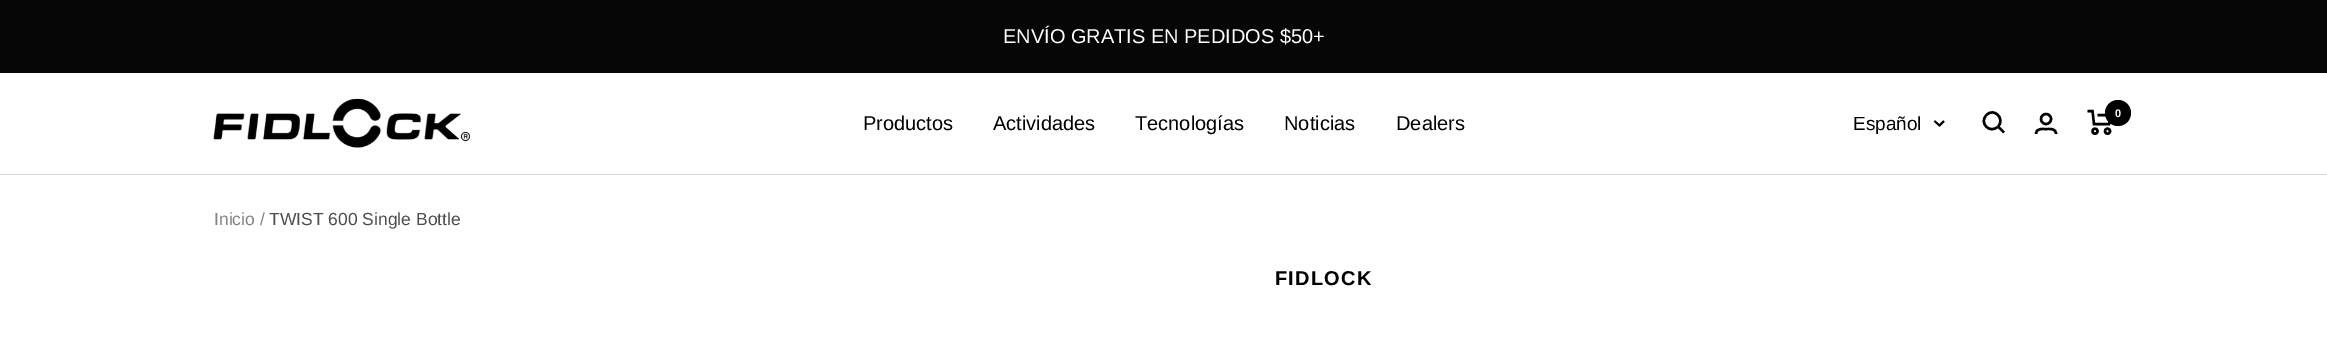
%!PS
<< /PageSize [2327 346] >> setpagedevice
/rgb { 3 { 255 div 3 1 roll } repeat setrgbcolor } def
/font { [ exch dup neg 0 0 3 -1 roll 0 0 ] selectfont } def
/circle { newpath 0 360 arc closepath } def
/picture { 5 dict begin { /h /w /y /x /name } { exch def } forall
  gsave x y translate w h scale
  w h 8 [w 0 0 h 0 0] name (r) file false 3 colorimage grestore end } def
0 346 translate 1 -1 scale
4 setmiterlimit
255 255 255 rgb
0 0 2327 346 rectfill
6 6 6 rgb
0 0 2327 73 rectfill
217 217 217 rgb
0 174 moveto 0 175 lineto 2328 175 lineto 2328 74 lineto 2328 174 lineto closepath fill
(img/1.rgb) 213 98 257 50 picture
0 0 0 rgb
2.4 setlinewidth
1998 126.5 moveto 2005.5 119 1994 107 1986.5 115 curveto 1978.5 123 1990 134.5 1998 126.5 curveto closepath 1998 126.5 moveto 2004 132.5 lineto stroke
2046 119 5 circle stroke
2036 134 moveto 2036 128 2042.5 129 2046 129 curveto 2050 129 2056 128 2056 134 curveto stroke
2087.5 111 moveto 2092.5 111 lineto 2094 124 lineto 2109 124 lineto 2111 115 lineto 2097.5 115 lineto stroke
2095 131.2 2.5 circle stroke
2107.5 131.2 2.5 circle stroke
2118 113 13 circle fill
1.8 setlinewidth
1934.5 121 moveto 1939.5 125.5 lineto 1944 121 lineto stroke
/LiberationSans-Regular 20 font
255 255 255 rgb
1003 43 moveto (ENVÍO GRATIS EN PEDIDOS $50+) show
0 0 0 rgb
[
  [(Productos) 863 130]
  [(Actividades) 993 130]
  [(Tecnologías) 1135 130]
  [(Noticias) 1284 130]
  [(Dealers) 1396 130]
] { aload pop moveto show } forall
/LiberationSans-Bold 11 font
255 255 255 rgb
2115 117 moveto (0) show
/LiberationSans-Regular 19 font
0 0 0 rgb
1853 130 moveto (Español) show
/LiberationSans-Regular 17.5 font
130 130 130 rgb
214 225 moveto (Inicio /) show
77 77 77 rgb
269 225 moveto (TWIST 600 Single Bottle) show
/LiberationSans-Bold 20 font
0 0 0 rgb
1275 285 moveto 1.25 0 (FIDLOCK) ashow
showpage
